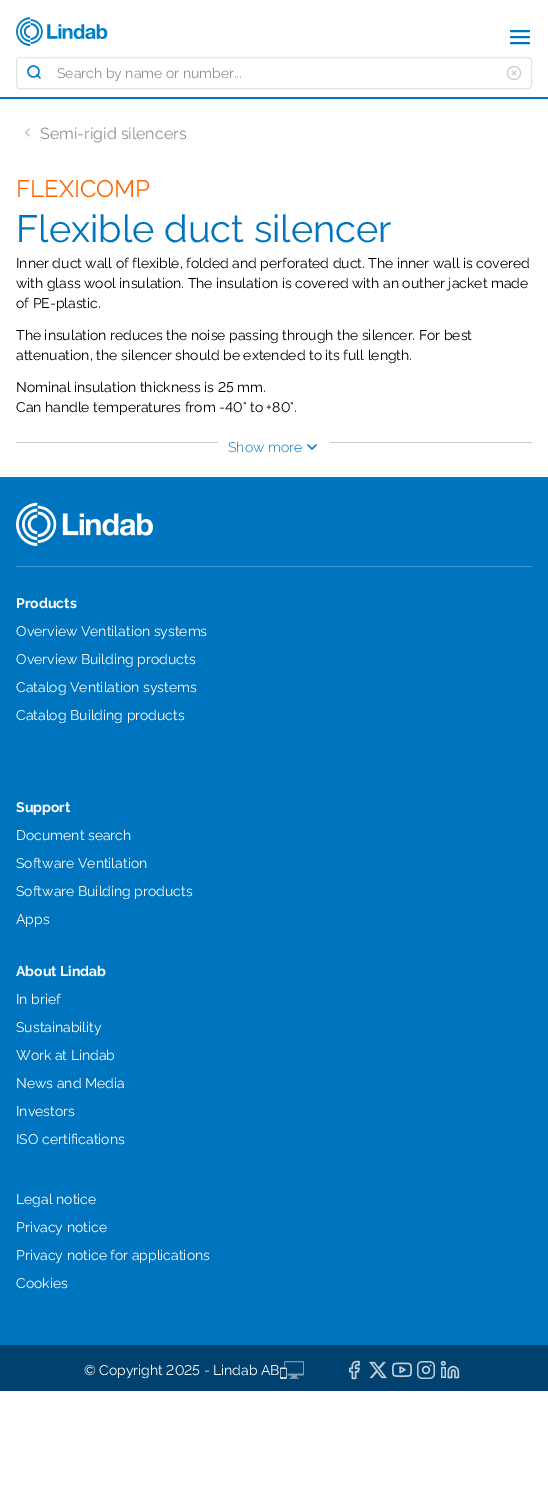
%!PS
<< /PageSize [548 1511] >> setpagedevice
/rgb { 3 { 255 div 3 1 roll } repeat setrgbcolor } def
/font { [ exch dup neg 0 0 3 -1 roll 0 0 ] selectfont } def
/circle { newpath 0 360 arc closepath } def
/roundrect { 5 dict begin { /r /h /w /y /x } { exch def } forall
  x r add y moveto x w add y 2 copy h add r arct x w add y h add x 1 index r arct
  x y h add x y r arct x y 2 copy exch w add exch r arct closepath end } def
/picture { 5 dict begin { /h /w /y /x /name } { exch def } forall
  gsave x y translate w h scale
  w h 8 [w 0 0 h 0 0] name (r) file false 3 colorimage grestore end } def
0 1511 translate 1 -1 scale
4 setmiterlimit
255 255 255 rgb
0 0 548 1511 rectfill
0 117 191 rgb
0 97 548 2 rectfill
(img/1.rgb) 16 17 92 29 picture
2 setlinewidth
1 setlinecap
1 setlinejoin
511 37 moveto 529 37 lineto 511 31 moveto 529 31 lineto 511 43 moveto 529 43 lineto stroke
228 228 228 rgb
1 setlinewidth
0 setlinecap
0 setlinejoin
16.5 57.5 515 31 3.5 roundrect stroke
0 117 191 rgb
1.3 setlinewidth
33.5 71.5 5.5 circle stroke
1 setlinecap
1 setlinejoin
40 78 moveto 37 75 lineto stroke
(img/2.rgb) 506 65 16 16 picture
201 201 201 rgb
1.2 setlinewidth
29.5 136 moveto 25.5 132.5 lineto 29.5 129 lineto stroke
16 442 516 1 rectfill
255 255 255 rgb
218 442 112 1 rectfill
0 117 191 rgb
1.3 setlinewidth
308 445 moveto 312 449 lineto 316 445 lineto stroke
0 477 548 868 rectfill
(img/3.rgb) 16 502 137 45 picture
64 152 207 rgb
16 566 516 1 rectfill
1 65 111 rgb
0 1345 548 46 rectfill
(img/4.rgb) 280 1361 24 18 picture
(img/5.rgb) 349 1360 11 20 picture
(img/6.rgb) 369 1361 18 18 picture
(img/7.rgb) 392 1362 20 16 picture
(img/8.rgb) 417 1361 18 18 picture
(img/9.rgb) 440 1360 20 19 picture
/Raleway-Thin 14 font
145 145 145 rgb
57 78 moveto (Search by name or number...) show
/Raleway-Thin 16 font
40 139 moveto (Semi-rigid silencers) show
/Raleway-Thin 24 font
255 102 0 rgb
16 197 moveto (FLEXICOMP) show
/Raleway-Thin 38 font
0 117 191 rgb
16 242 moveto (Flexible duct silencer) show
/Raleway-Thin 14 font
0 0 0 rgb
[
  [(Inner duct wall of flexible, folded and perforated duct. The inner wall is covered) 16 268]
  [(with glass wool insulation. The insulation is covered with an outher jacket made) 16 288]
  [(of PE-plastic.) 16 308]
  [(The insulation reduces the noise passing through the silencer. For best) 16 340]
  [(attenuation, the silencer should be extended to its full length.) 16 360]
] { aload pop moveto show } forall
/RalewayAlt-Thin 14 font
16 392 moveto (Nominal insulation thickness is 25 mm.) show
16 412 moveto (Can handle temperatures from -40° to +80°.) show
/Raleway-Light 14 font
0 117 191 rgb
228 452 moveto (Show more) show
/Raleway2-Thin 14 font
255 255 255 rgb
16 608 moveto (Products) show
/Raleway-Thin 14 font
[
  [(Overview Ventilation systems) 16 636]
  [(Overview Building products) 16 664]
  [(Catalog Ventilation systems) 16 692]
  [(Catalog Building products) 16 720]
] { aload pop moveto show } forall
/Raleway2-Thin 14 font
16 812 moveto (Support) show
/Raleway-Thin 14 font
[
  [(Document search) 16 840]
  [(Software Ventilation) 16 868]
  [(Software Building products) 16 896]
  [(Apps) 16 924]
] { aload pop moveto show } forall
/Raleway2-Thin 14 font
16 976 moveto (About Lindab) show
/Raleway-Thin 14 font
[
  [(In brief) 16 1004]
  [(Sustainability) 16 1032]
  [(Work at Lindab) 16 1060]
  [(News and Media) 16 1088]
  [(Investors) 16 1116]
  [(ISO certifications) 16 1144]
  [(Legal notice) 16 1204]
  [(Privacy notice) 16 1232]
  [(Privacy notice for applications) 16 1260]
  [(Cookies) 16 1288]
] { aload pop moveto show } forall
/RalewayAlt-Thin 14 font
84 1375 moveto (© Copyright 2025 - Lindab AB) show
showpage
